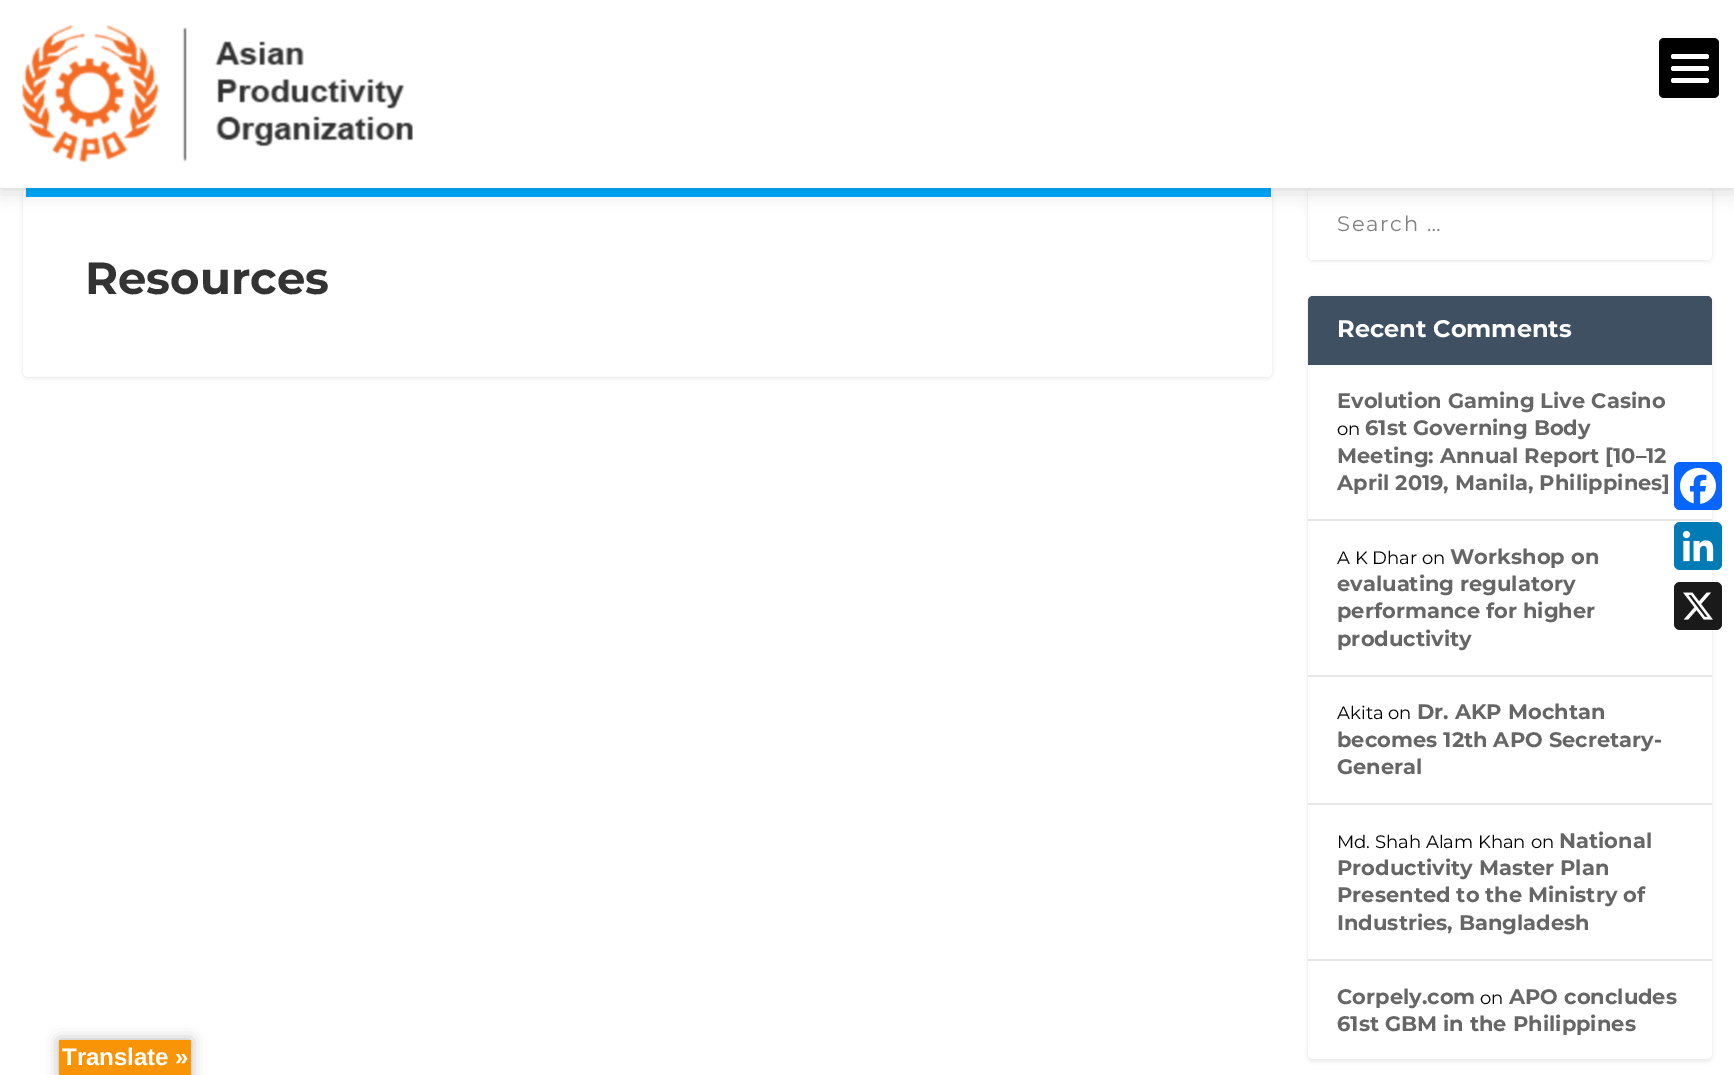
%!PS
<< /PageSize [1734 1075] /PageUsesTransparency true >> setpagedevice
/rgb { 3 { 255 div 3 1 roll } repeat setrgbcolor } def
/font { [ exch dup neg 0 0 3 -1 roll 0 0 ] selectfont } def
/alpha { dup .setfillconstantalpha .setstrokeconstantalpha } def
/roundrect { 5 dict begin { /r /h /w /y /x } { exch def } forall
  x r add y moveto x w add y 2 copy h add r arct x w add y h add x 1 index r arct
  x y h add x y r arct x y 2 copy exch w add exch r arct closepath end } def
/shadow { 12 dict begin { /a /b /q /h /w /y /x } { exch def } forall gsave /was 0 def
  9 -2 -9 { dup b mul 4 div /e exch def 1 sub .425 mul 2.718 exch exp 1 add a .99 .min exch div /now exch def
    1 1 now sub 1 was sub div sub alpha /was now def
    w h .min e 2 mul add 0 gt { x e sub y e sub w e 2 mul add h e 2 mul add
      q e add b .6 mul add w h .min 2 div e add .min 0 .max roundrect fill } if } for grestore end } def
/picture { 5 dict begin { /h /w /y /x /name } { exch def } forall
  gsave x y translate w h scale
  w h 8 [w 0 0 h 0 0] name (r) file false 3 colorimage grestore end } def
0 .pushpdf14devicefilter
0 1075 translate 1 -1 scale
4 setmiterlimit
255 255 255 rgb
0 0 1734 1075 rectfill
0 0 0 rgb
23 189 1249 189 5 2 0.1 shadow
255 255 255 rgb
23 188 1249 189 5 roundrect fill
0 168 255 rgb
26 188 1245 9 rectfill
0 0 0 rgb
1308 189 404 72 5 2 0.1 shadow
255 255 255 rgb
1308 188 404 72 5 roundrect fill
0 0 0 rgb
0 0 1734 188 0 11 0.2 shadow
255 255 255 rgb
0 0 1734 188 rectfill
0 0 0 rgb
1659 38 60 60 5 roundrect fill
255 255 255 rgb
1671 66 38 5 2.5 roundrect fill
1671 54 38 5 2.5 roundrect fill
1671 78 38 5 2.5 roundrect fill
(img/1.rgb) 22 25 391 138 picture
0 0 0 rgb
1308 297 404 764 5 2 0.1 shadow
255 255 255 rgb
1308 296 404 763 5 roundrect fill
62 80 98 rgb
1313 296 moveto 1707 296 lineto 1710 296 1712 298 1712 301 curveto 1712 365 lineto 1308 365 lineto 1308 301 lineto 1308 298 1310 296 1313 296 curveto closepath fill
[
  [1308 519 404 2 230 230 230]
  [1308 675 404 2 230 230 230]
  [1308 803 404 2 230 230 230]
  [1308 959 404 2 230 230 230]
] { aload pop rgb rectfill } forall
8 102 255 rgb
1674 462 48 48 6 roundrect fill
(img/2.rgb) 1680 468 36 36 picture
0 123 181 rgb
1674 522 48 48 6 roundrect fill
(img/3.rgb) 1682 530 32 32 picture
26 26 26 rgb
1674 582 48 48 6 roundrect fill
(img/4.rgb) 1683 592 30 28 picture
0 0 0 rgb
59 1040 132 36 0 7 0.3 shadow
248 148 6 rgb
59 1040 132 35 rectfill
/Montserrat-Bold 45 font
51 51 51 rgb
85 294 moveto (Resources) show
/Montserrat-Regular 21 font
128 128 128 rgb
1337 231 moveto 1.75 0 (Search …) ashow
/Montserrat-Bold 24 font
255 255 255 rgb
1337 337 moveto (Recent Comments) show
/Montserrat-Bold 21 font
102 102 102 rgb
1337 408 moveto (Evolution Gaming Live Casino) show
/Montserrat-Regular 18 font
0 0 0 rgb
1337 435 moveto (on) show
/Montserrat-Bold 21 font
102 102 102 rgb
[
  [(61st Governing Body) 1365 435]
  [(Meeting: Annual Report [10–12) 1337 463]
  [(April 2019, Manila, Philippines]) 1337 490]
] { aload pop moveto show } forall
/Montserrat-Regular 18 font
0 0 0 rgb
1337 564 moveto (A K Dhar) show
1422 564 moveto (on) show
/Montserrat-Bold 21 font
102 102 102 rgb
[
  [(Workshop on) 1450 564]
  [(evaluating regulatory) 1337 591]
  [(performance for higher) 1337 618]
  [(productivity) 1337 646]
] { aload pop moveto show } forall
/Montserrat-Regular 18 font
0 0 0 rgb
1337 719 moveto (Akita) show
1388 719 moveto (on) show
/Montserrat-Bold 21 font
102 102 102 rgb
[
  [(Dr. AKP Mochtan) 1417 719]
  [(becomes 12th APO Secretary-) 1337 747]
  [(General) 1337 774]
] { aload pop moveto show } forall
/Montserrat-Regular 18 font
0 0 0 rgb
1337 848 moveto (Md. Shah Alam Khan) show
1531 848 moveto (on) show
/Montserrat-Bold 21 font
102 102 102 rgb
[
  [(National) 1559 848]
  [(Productivity Master Plan) 1337 875]
  [(Presented to the Ministry of) 1337 902]
  [(Industries, Bangladesh) 1337 930]
  [(Corpely.com) 1337 1004]
] { aload pop moveto show } forall
/Montserrat-Regular 18 font
0 0 0 rgb
1480 1004 moveto (on) show
/Montserrat-Bold 21 font
102 102 102 rgb
1509 1004 moveto (APO concludes) show
1337 1031 moveto (61st GBM in the Philippines) show
/LiberationSans-Bold 24 font
255 255 255 rgb
62 1065 moveto (Translate ») show
.poppdf14devicefilter showpage
